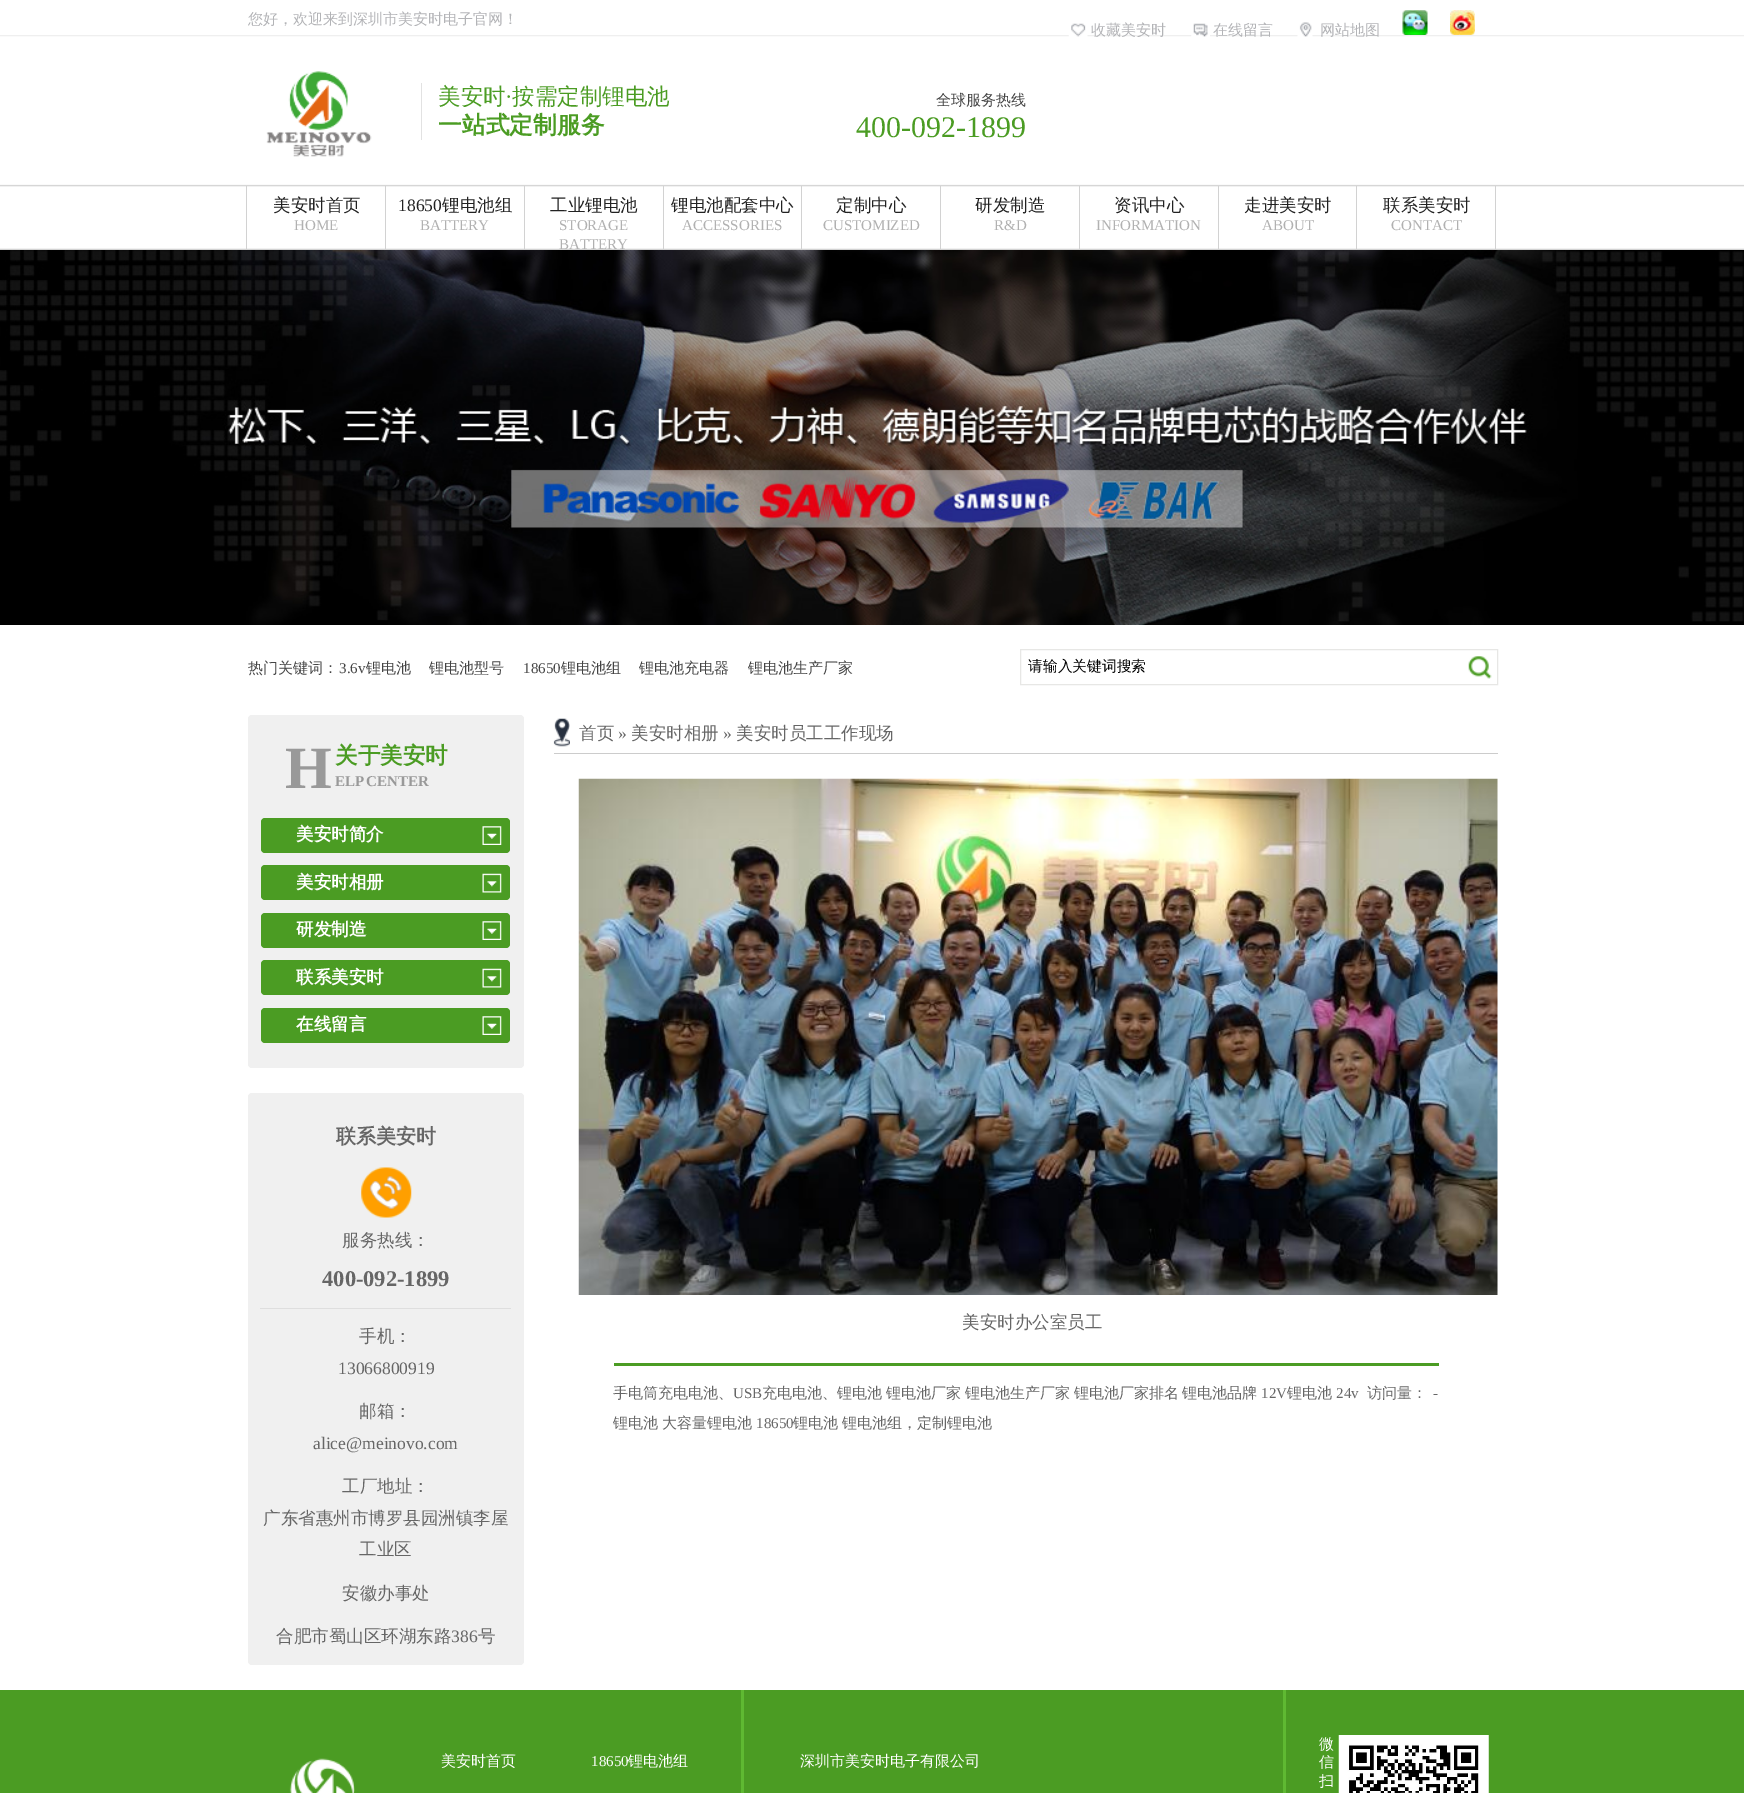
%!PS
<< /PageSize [1744 1793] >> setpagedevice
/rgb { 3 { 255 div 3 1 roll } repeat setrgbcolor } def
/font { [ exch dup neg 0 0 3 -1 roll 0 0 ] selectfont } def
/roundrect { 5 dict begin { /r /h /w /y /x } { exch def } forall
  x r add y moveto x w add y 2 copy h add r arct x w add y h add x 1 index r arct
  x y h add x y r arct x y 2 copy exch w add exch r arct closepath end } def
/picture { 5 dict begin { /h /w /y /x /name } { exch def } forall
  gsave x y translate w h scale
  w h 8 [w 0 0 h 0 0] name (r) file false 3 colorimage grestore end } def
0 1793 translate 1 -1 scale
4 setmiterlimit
255 255 255 rgb
0 0 1744 1793 rectfill
(img/1.rgb) 0 35 1744 215 picture
(img/2.rgb) 1068 23 20 14 picture
(img/3.rgb) 1191 23 19 14 picture
(img/4.rgb) 1297 22 16 15 picture
(img/5.rgb) 1402 10 26 25 picture
(img/6.rgb) 1450 10 25 25 picture
(img/7.rgb) 266 71 106 86 picture
[
  [421 83 1 57 226 226 226]
  [385 186 1 64 210 210 210]
  [246 186 1 64 210 210 210]
  [524 186 1 64 210 210 210]
  [663 186 1 64 210 210 210]
  [801 186 1 64 210 210 210]
  [940 186 1 64 210 210 210]
  [1079 186 1 64 210 210 210]
  [1218 186 1 64 210 210 210]
  [1356 186 1 64 210 210 210]
  [1495 186 1 64 210 210 210]
] { aload pop rgb rectfill } forall
(img/8.rgb) 0 250 1744 375 picture
231 231 229 rgb
1020.5 649.5 477 35 rectstroke
(img/9.rgb) 1468 656 24 23 picture
240 240 240 rgb
248 715 276 353 4 roundrect fill
75 156 35 rgb
261 818 249 35 4 roundrect fill
(img/10.rgb) 482 826 20 19 picture
261 865 249 35 4 roundrect fill
(img/11.rgb) 482 873 20 20 picture
261 913 249 35 4 roundrect fill
(img/10.rgb) 482 921 20 19 picture
261 960 249 35 4 roundrect fill
(img/11.rgb) 482 968 20 20 picture
261 1008 249 35 4 roundrect fill
(img/10.rgb) 482 1016 20 19 picture
240 240 240 rgb
248 1093 276 572 4 roundrect fill
(img/12.rgb) 361 1167 51 51 picture
222 222 222 rgb
260 1308 251 1 rectfill
(img/13.rgb) 553 718 17 29 picture
204 204 204 rgb
554 753 944 1 rectfill
(img/14.rgb) 578 778 920 517 picture
75 156 35 rgb
614 1363 825 3 rectfill
0 1690 1744 103 rectfill
(img/15.rgb) 289 1758 66 35 picture
95 185 50 rgb
741 1690 3 103 rectfill
1283 1690 3 103 rectfill
(img/16.rgb) 1338 1735 151 58 picture
/WenQuanYiZenHei-Medium 15 font
179 180 183 rgb
[
  [(您好，欢迎来到深圳市美安时电子官网！) 248 24]
  [(收藏美安时) 1091 35]
  [(在线留言) 1213 35]
  [(网站地图) 1320 35]
] { aload pop moveto show } forall
/WenQuanYiZenHei-Medium 22.5 font
75 156 35 rgb
438 104 moveto (美安时) show
/LiberationSerif-Regular 22.5 font
505 104 moveto (·) show
/WenQuanYiZenHei-Medium 22.5 font
512 104 moveto (按需定制锂电池) show
/WenQuanYiZenHei-Bold 23.75 font
438 133 moveto (一站式定制服务) show
/WenQuanYiZenHei-Medium 15 font
68 68 68 rgb
936 105 moveto (全球服务热线) show
/LiberationSerif-Regular 30 font
75 156 35 rgb
856 137 moveto (400-092-1899) show
/WenQuanYiZenHei-Medium 17.5 font
34 34 34 rgb
273 211 moveto (美安时首页) show
/LiberationSerif-Regular 15 font
177 177 177 rgb
294 230 moveto (HOME) show
/LiberationSerif-Regular 17.5 font
34 34 34 rgb
398 211 moveto (18650) show
/WenQuanYiZenHei-Medium 17.5 font
442 211 moveto (锂电池组) show
/LiberationSerif-Regular 15 font
177 177 177 rgb
420 230 moveto (BATTERY) show
/WenQuanYiZenHei-Medium 17.5 font
34 34 34 rgb
550 211 moveto (工业锂电池) show
/LiberationSerif-Regular 15 font
177 177 177 rgb
559 230 moveto (STORAGE) show
559 249 moveto (BATTERY) show
/WenQuanYiZenHei-Medium 17.5 font
34 34 34 rgb
671 211 moveto (锂电池配套中心) show
/LiberationSerif-Regular 15 font
177 177 177 rgb
682 230 moveto (ACCESSORIES) show
/WenQuanYiZenHei-Medium 17.5 font
34 34 34 rgb
836 211 moveto (定制中心) show
/LiberationSerif-Regular 15 font
177 177 177 rgb
823 230 moveto (CUSTOMIZED) show
/WenQuanYiZenHei-Medium 17.5 font
34 34 34 rgb
975 211 moveto (研发制造) show
/LiberationSerif-Regular 15 font
177 177 177 rgb
994 230 moveto (R&D) show
/WenQuanYiZenHei-Medium 17.5 font
34 34 34 rgb
1114 211 moveto (资讯中心) show
/LiberationSerif-Regular 15 font
177 177 177 rgb
1096 230 moveto (INFORMATION) show
/WenQuanYiZenHei-Medium 17.5 font
34 34 34 rgb
1244 211 moveto (走进美安时) show
/LiberationSerif-Regular 15 font
177 177 177 rgb
1262 230 moveto (ABOUT) show
/WenQuanYiZenHei-Medium 17.5 font
34 34 34 rgb
1383 211 moveto (联系美安时) show
/LiberationSerif-Regular 15 font
177 177 177 rgb
1391 230 moveto (CONTACT) show
/WenQuanYiZenHei-Medium 15 font
68 68 68 rgb
248 673 moveto (热门关键词：) show
/LiberationSerif-Regular 15 font
339 673 moveto (3.6v) show
/WenQuanYiZenHei-Medium 15 font
366 673 moveto (锂电池) show
429 673 moveto (锂电池型号) show
/LiberationSerif-Regular 15 font
523 673 moveto (18650) show
/WenQuanYiZenHei-Medium 15 font
[
  [(锂电池组) 561 673]
  [(锂电池充电器) 639 673]
  [(锂电池生产厂家) 748 673]
] { aload pop moveto show } forall
/WenQuanYiZenHei-Medium 14.75 font
0 0 0 rgb
1028 671 moveto (请输入关键词搜索) show
/LiberationSerif-Bold 60 font
153 153 153 rgb
285 788 moveto (H) show
/WenQuanYiZenHei-Bold 22.5 font
75 156 35 rgb
335 763 moveto (关于美安时) show
/LiberationSerif-Bold 15 font
153 153 153 rgb
335 786 moveto (ELP) show
366 786 moveto (CENTER) show
/WenQuanYiZenHei-Bold 17.5 font
255 255 255 rgb
[
  [(美安时简介) 296 840]
  [(美安时相册) 296 888]
  [(研发制造) 296 935]
  [(联系美安时) 296 983]
  [(在线留言) 296 1030]
] { aload pop moveto show } forall
/WenQuanYiZenHei-Bold 20 font
102 102 102 rgb
336 1143 moveto (联系美安时) show
/WenQuanYiZenHei-Medium 17.5 font
342 1246 moveto (服务热线：) show
/LiberationSerif-Bold 22.5 font
322 1286 moveto (400-092-1899) show
/WenQuanYiZenHei-Medium 17.5 font
359 1342 moveto (手机：) show
/LiberationSerif-Regular 17.5 font
338 1374 moveto (13066800919) show
/WenQuanYiZenHei-Medium 17.5 font
359 1417 moveto (邮箱：) show
/LiberationSerif-Regular 17.5 font
313 1449 moveto (alice@meinovo.com) show
/WenQuanYiZenHei-Medium 17.5 font
[
  [(工厂地址：) 342 1492]
  [(广东省惠州市博罗县园洲镇李屋) 263 1524]
  [(工业区) 359 1555]
  [(安徽办事处) 342 1599]
  [(合肥市蜀山区环湖东路) 276 1642]
] { aload pop moveto show } forall
/LiberationSerif-Regular 17.5 font
451 1642 moveto (386) show
/WenQuanYiZenHei-Medium 17.5 font
478 1642 moveto (号) show
579 739 moveto (首页) show
/LiberationSerif-Regular 17.5 font
618 739 moveto (») show
/WenQuanYiZenHei-Medium 17.5 font
631 739 moveto (美安时相册) show
/LiberationSerif-Regular 17.5 font
723 739 moveto (») show
/WenQuanYiZenHei-Medium 17.5 font
736 739 moveto (美安时员工工作现场) show
962 1328 moveto (美安时办公室员工) show
/WenQuanYiZenHei-Medium 15 font
613 1398 moveto (手电筒充电电池、) show
/LiberationSerif-Regular 15 font
733 1398 moveto (USB) show
/WenQuanYiZenHei-Medium 15 font
[
  [(充电电池、锂电池) 762 1398]
  [(锂电池厂家) 886 1398]
  [(锂电池生产厂家) 965 1398]
  [(锂电池厂家排名) 1074 1398]
  [(锂电池品牌) 1182 1398]
] { aload pop moveto show } forall
/LiberationSerif-Regular 15 font
1261 1398 moveto (12V) show
/WenQuanYiZenHei-Medium 15 font
1287 1398 moveto (锂电池) show
/LiberationSerif-Regular 15 font
1336 1398 moveto (24v) show
/WenQuanYiZenHei-Medium 15 font
613 1428 moveto (锂电池) show
662 1428 moveto (大容量锂电池) show
/LiberationSerif-Regular 15 font
756 1428 moveto (18650) show
/WenQuanYiZenHei-Medium 15 font
[
  [(锂电池) 793 1428]
  [(锂电池组，定制锂电池) 842 1428]
  [(访问量：) 1367 1398]
] { aload pop moveto show } forall
/LiberationSerif-Regular 15 font
1433 1398 moveto (-) show
/WenQuanYiZenHei-Medium 15 font
255 255 255 rgb
441 1766 moveto (美安时首页) show
/LiberationSerif-Regular 15 font
591 1766 moveto (18650) show
/WenQuanYiZenHei-Medium 15 font
[
  [(锂电池组) 628 1766]
  [(深圳市美安时电子有限公司) 800 1766]
  [(微) 1319 1749]
  [(信) 1319 1767]
  [(扫) 1319 1786]
] { aload pop moveto show } forall
showpage
